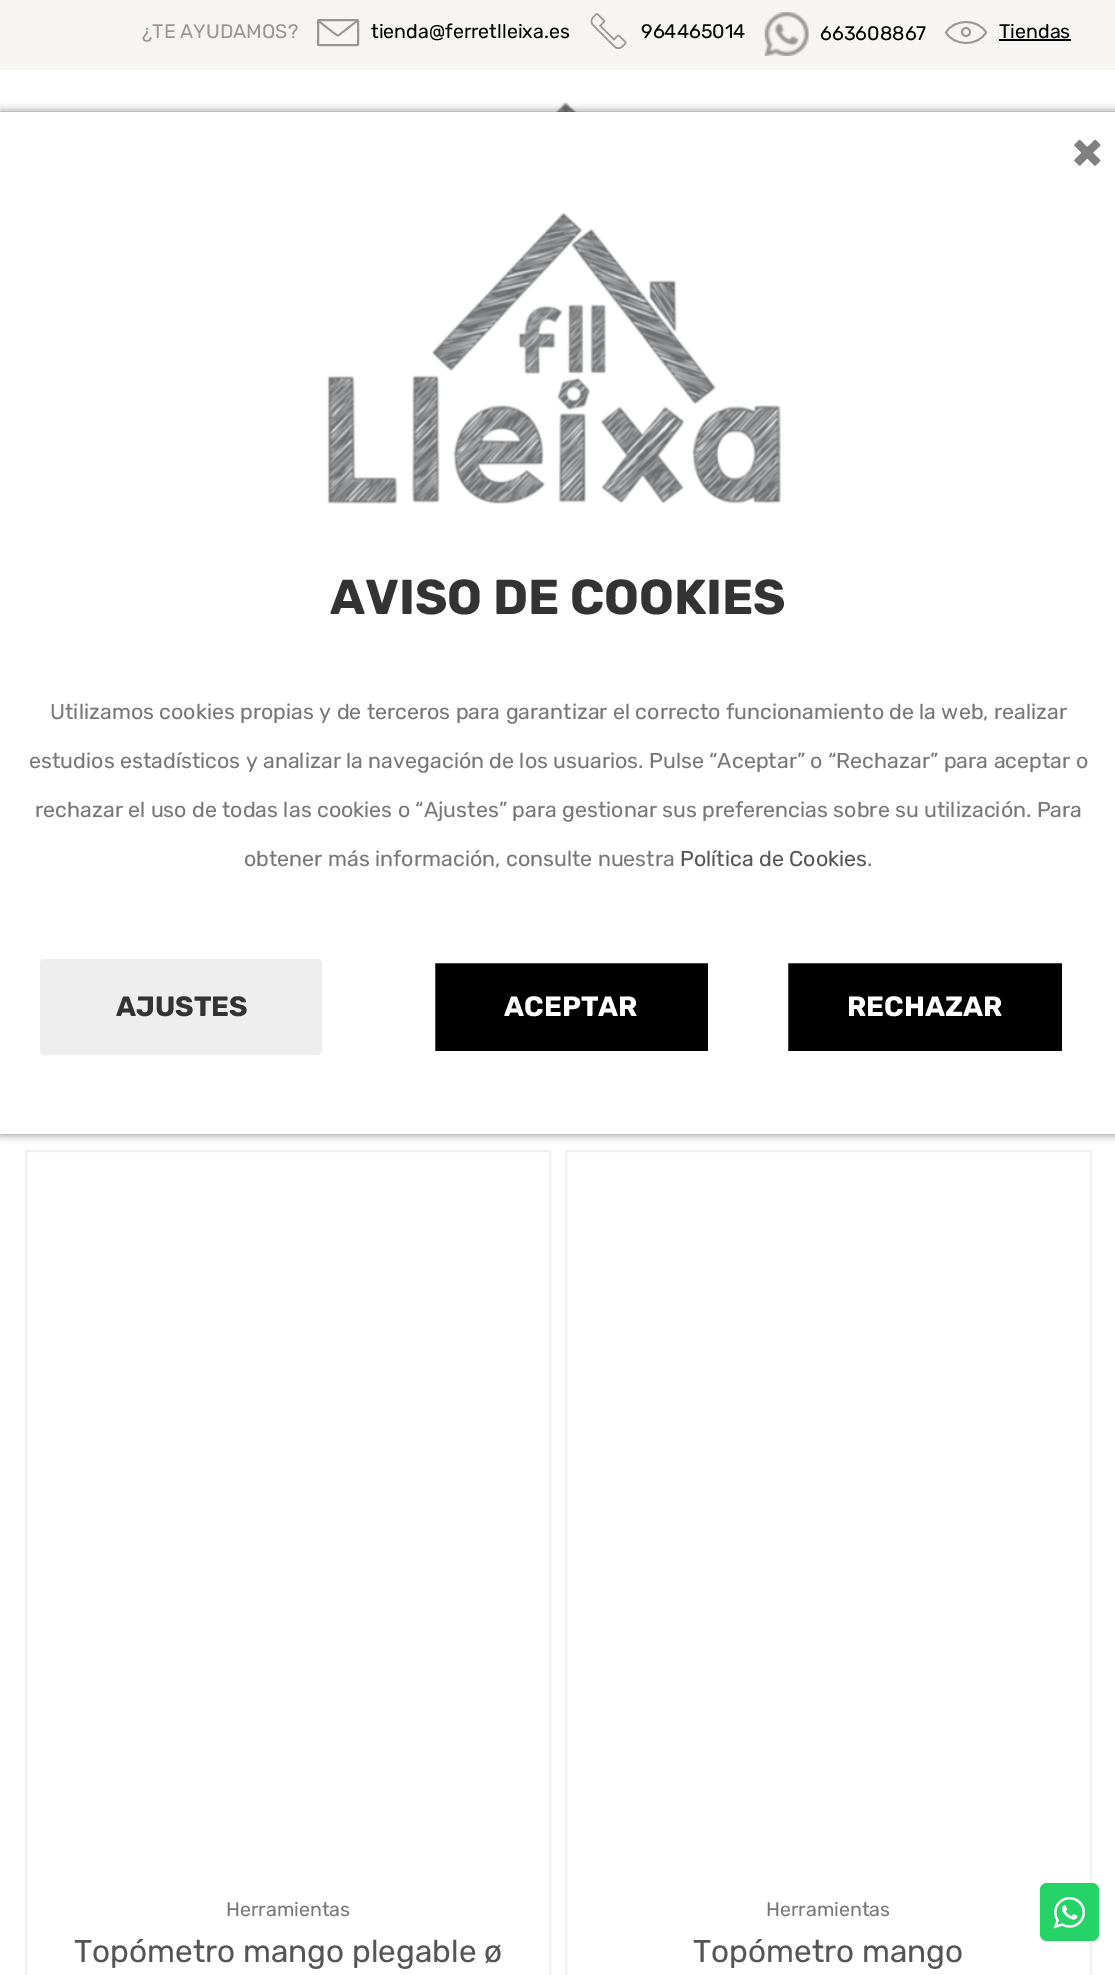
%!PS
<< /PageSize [1115 1975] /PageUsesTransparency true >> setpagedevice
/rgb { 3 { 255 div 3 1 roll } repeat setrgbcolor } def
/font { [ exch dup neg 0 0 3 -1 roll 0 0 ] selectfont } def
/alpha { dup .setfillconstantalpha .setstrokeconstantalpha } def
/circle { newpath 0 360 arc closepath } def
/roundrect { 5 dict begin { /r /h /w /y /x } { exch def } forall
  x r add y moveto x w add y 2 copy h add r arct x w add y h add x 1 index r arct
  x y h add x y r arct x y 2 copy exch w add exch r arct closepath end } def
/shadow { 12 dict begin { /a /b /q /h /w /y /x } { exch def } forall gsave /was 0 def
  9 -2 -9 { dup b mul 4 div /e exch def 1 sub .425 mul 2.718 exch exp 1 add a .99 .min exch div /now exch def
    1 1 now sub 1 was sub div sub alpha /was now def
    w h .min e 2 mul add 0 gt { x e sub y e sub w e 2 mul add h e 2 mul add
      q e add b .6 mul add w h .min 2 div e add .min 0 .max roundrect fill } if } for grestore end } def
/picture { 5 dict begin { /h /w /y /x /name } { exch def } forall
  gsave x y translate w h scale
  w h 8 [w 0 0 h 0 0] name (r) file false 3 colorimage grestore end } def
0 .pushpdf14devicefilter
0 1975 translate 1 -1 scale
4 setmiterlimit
255 255 255 rgb
0 0 1115 1975 rectfill
247 245 242 rgb
0 0 1115 70 rectfill
151 151 151 rgb
2 setlinewidth
318 20 40 25 1 roundrect stroke
1.8 setlinewidth
318.5 21 moveto 336.5 35 lineto 337.5 35.5 338 35.5 339 35 curveto 357 21 lineto stroke
(img/1.rgb) 590 13 37 36 picture
(img/2.rgb) 764 12 45 44 picture
986 32.5 moveto 978 46.5 954 46.5 946 32.5 curveto 954 18.5 978 18.5 986 32.5 curveto closepath stroke
0 0 0 rgb
999 39 72 2 rectfill
151 151 151 rgb
966 32 4 circle stroke
(img/3.rgb) 555 103 23 9 picture
241 241 241 rgb
2 setlinewidth
26 1151 524 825 rectstroke
566 1151 525 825 rectstroke
0 0 0 rgb
0 112 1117 1022 0 4.5 0.5 shadow
255 255 255 rgb
0 112 1115 1022 rectfill
(img/4.rgb) 327 212 454 292 picture
238 238 238 rgb
42 961 278 92 2 roundrect gsave fill grestore
4 setlinewidth
stroke
0 0 0 rgb
433 961 277 92 2 roundrect gsave fill grestore
255 255 255 rgb
stroke
0 0 0 rgb
786 961 278 92 2 roundrect gsave fill grestore
255 255 255 rgb
stroke
37 211 102 rgb
1040 1883 59 58 7 roundrect fill
(img/5.rgb) 1053 1897 32 32 picture
/Rubik-Regular 19.6 font
151 151 151 rgb
142 38 moveto (¿TE AYUDAMOS?) show
0 0 0 rgb
[
  [(tienda@ferretlleixa.es) 371 38]
  [(964465014) 641 38]
  [(663608867) 820 40]
  [(Tiendas) 999 38]
] { aload pop moveto show } forall
119 119 119 rgb
226 1916 moveto (Herramientas) show
/Rubik-Regular 31.5 font
85 85 85 rgb
74 1962 moveto (Topómetro mango plegable ø) show
/Rubik-Regular 19.6 font
119 119 119 rgb
766 1916 moveto (Herramientas) show
/Rubik-Regular 31.5 font
85 85 85 rgb
693 1962 moveto (Topómetro mango) show
/Rubik-Bold 51 font
128 128 128 rgb
1072 168 moveto (×) show
/Rubik-Bold 49 font
51 51 51 rgb
330 614 moveto (AVISO DE COOKIES) show
/Rubik-Regular 21.45 font
119 119 119 rgb
[
  [(Utilizamos cookies propias y de terceros para garantizar el correcto funcionamiento de la web, realizar) 50 719]
  [(estudios estadísticos y analizar la navegación de los usuarios. Pulse “Aceptar” o “Rechazar” para aceptar o) 29 768]
  [(rechazar el uso de todas las cookies o “Ajustes” para gestionar sus preferencias sobre su utilización. Para) 35 817]
  [(obtener más información, consulte nuestra) 244 866]
] { aload pop moveto show } forall
85 85 85 rgb
680 866 moveto (Política de Cookies) show
119 119 119 rgb
867 866 moveto (.) show
/Rubik-Bold 28 font
51 51 51 rgb
116 1016 moveto (AJUSTES) show
255 255 255 rgb
504 1016 moveto (ACEPTAR) show
847 1016 moveto (RECHAZAR) show
.poppdf14devicefilter showpage
